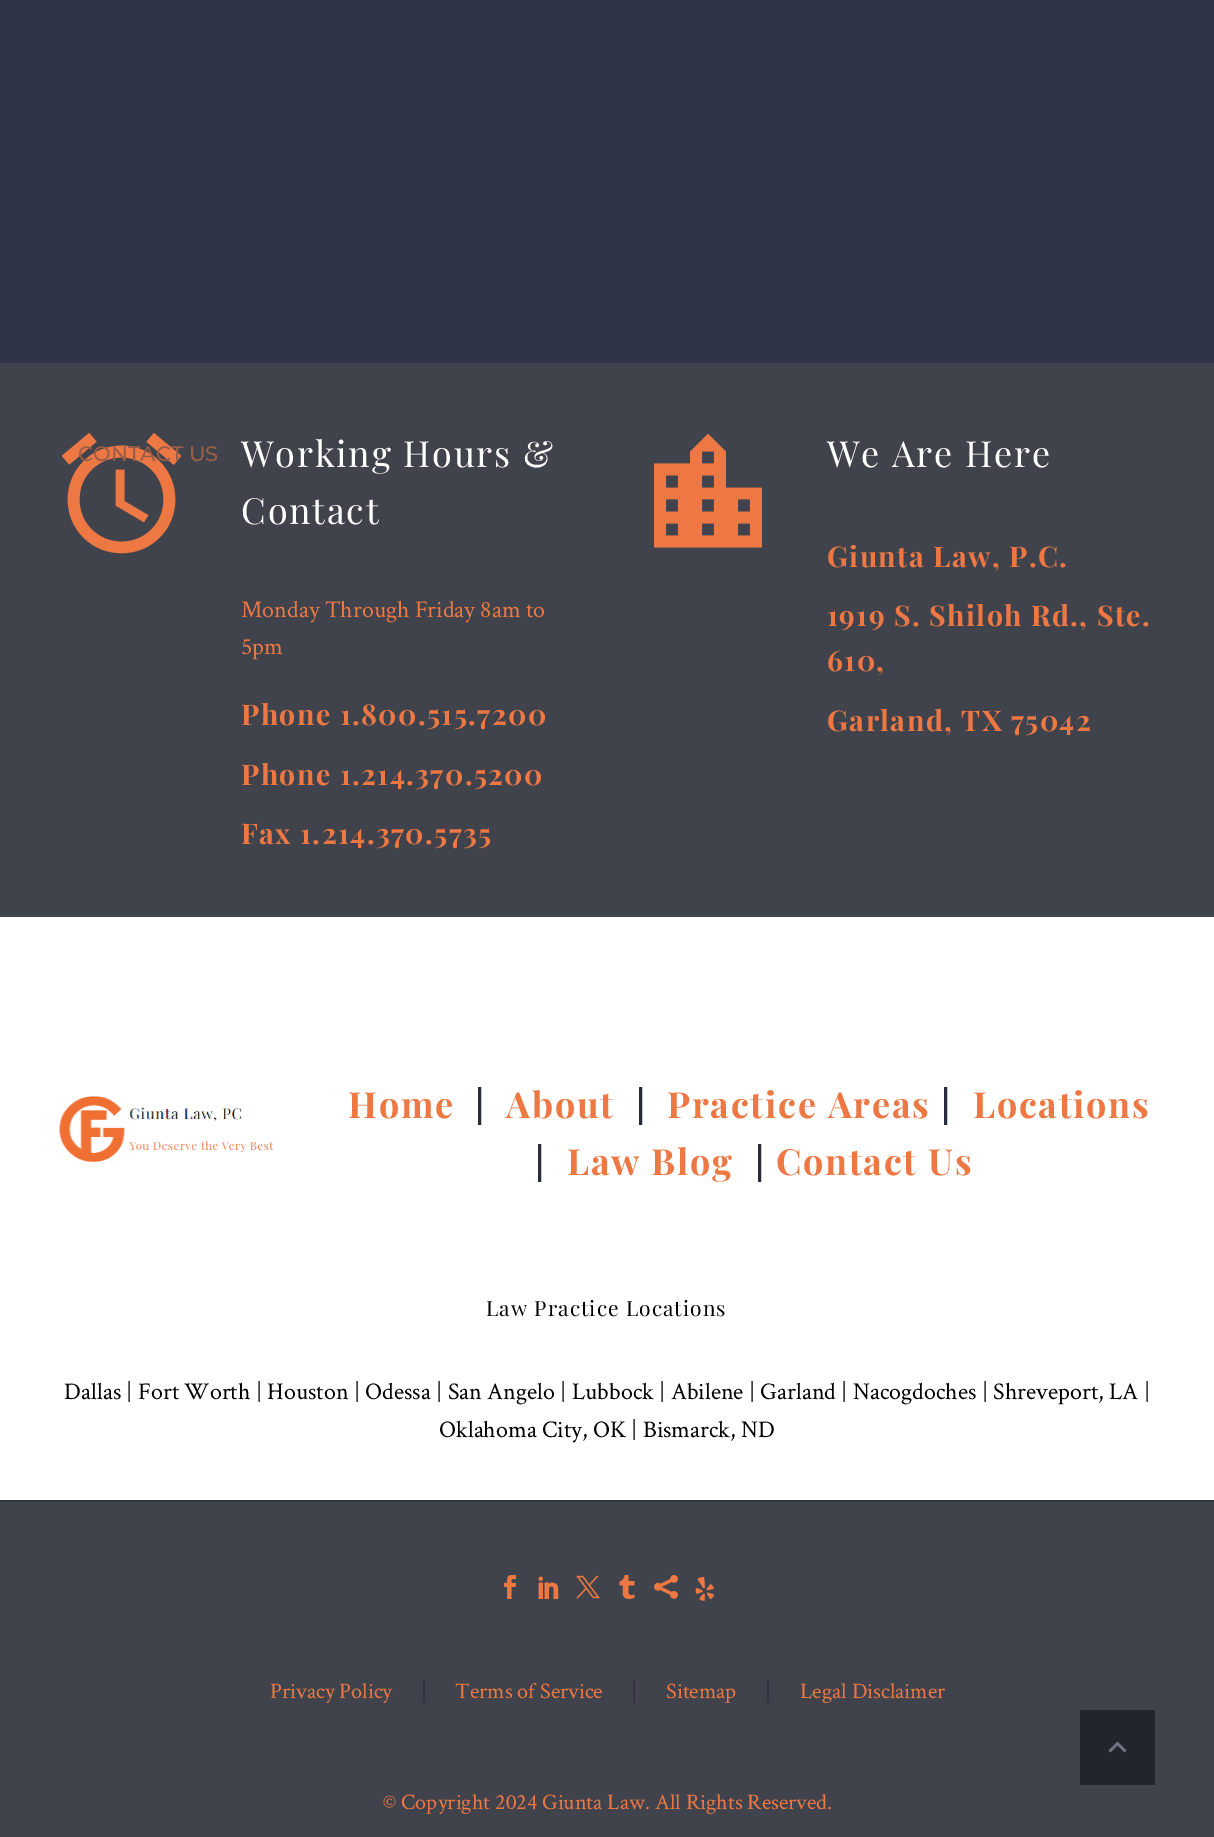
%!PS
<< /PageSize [1214 1837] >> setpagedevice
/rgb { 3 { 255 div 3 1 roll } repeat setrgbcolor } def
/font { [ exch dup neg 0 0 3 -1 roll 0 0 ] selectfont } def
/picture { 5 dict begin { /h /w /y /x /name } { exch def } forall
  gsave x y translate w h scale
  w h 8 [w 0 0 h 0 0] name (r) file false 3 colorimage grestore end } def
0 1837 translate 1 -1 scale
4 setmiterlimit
255 255 255 rgb
0 0 1214 1837 rectfill
46 53 72 rgb
0 0 1214 363 rectfill
64 67 76 rgb
0 363 1214 554 rectfill
(img/1.rgb) 61 432 61 122 picture
(img/2.rgb) 122 432 60 122 picture
(img/3.rgb) 654 433 54 115 picture
(img/4.rgb) 708 433 54 115 picture
(img/5.rgb) 59 1096 215 66 picture
0 1502 1214 335 rectfill
49 54 70 rgb
0 1500 1214 2 rectfill
(img/6.rgb) 504 1575 13 24 picture
(img/7.rgb) 538 1576 21 23 picture
(img/8.rgb) 576 1575 24 24 picture
(img/9.rgb) 619 1575 16 24 picture
(img/10.rgb) 654 1575 24 24 picture
(img/11.rgb) 695 1577 19 24 picture
[
  [423 1680 2 23 51 49 70]
  [633 1680 2 23 51 49 70]
  [767 1680 2 23 51 49 70]
  [1080 1710 75 75 35 37 46]
] { aload pop rgb rectfill } forall
109 118 129 rgb
1110.5 1752.5 moveto 1117.5 1745.5 lineto 1124.5 1752.5 lineto 1126.5 1750.5 lineto 1117.5 1741.5 lineto 1108.5 1750.5 lineto closepath fill
/PlayfairDisplay-Regular 36 font
255 255 255 rgb
241 467 moveto 1.75 0 (Working Hours &) ashow
241 524 moveto 1.75 0 (Contact) ashow
/CrimsonText-Regular 24 font
237 120 68 rgb
241 617 moveto (Monday Through Friday 8am to) show
241 654 moveto (5pm) show
/PlayfairDisplay-Bold 28.5 font
241 725 moveto 1.4 0 (Phone 1.800.515.7200) ashow
241 785 moveto 1.4 0 (Phone 1.214.370.5200) ashow
241 844 moveto 1.4 0 (Fax 1.214.370.5735) ashow
/PlayfairDisplay-Regular 36 font
255 255 255 rgb
827 467 moveto 1.75 0 (We Are Here) ashow
/PlayfairDisplay-Bold 28.5 font
237 120 68 rgb
827 567 moveto 1.4 0 (Giunta Law, P.C.) ashow
827 626 moveto 1.4 0 (1919 S. Shiloh Rd., Ste.) ashow
827 671 moveto 1.4 0 (610,) ashow
827 731 moveto 1.4 0 (Garland, TX 75042) ashow
/PlayfairDisplay-Bold 36 font
348 1118 moveto 1.75 0 (Home) ashow
40 45 60 rgb
475 1118 moveto 1.75 0 (|) ashow
237 120 68 rgb
506 1118 moveto 1.75 0 (About) ashow
40 45 60 rgb
636 1118 moveto 1.75 0 (|) ashow
237 120 68 rgb
667 1118 moveto 1.75 0 (Practice Areas) ashow
40 45 60 rgb
941 1118 moveto 1.75 0 (|) ashow
237 120 68 rgb
973 1118 moveto 1.75 0 (Locations) ashow
40 45 60 rgb
535 1175 moveto 1.75 0 (|) ashow
237 120 68 rgb
567 1175 moveto 1.75 0 (Law Blog) ashow
40 45 60 rgb
755 1175 moveto 1.75 0 (|) ashow
237 120 68 rgb
776 1175 moveto 1.75 0 (Contact Us) ashow
/PlayfairDisplay-Regular 21 font
0 0 0 rgb
486 1316 moveto 1.05 0 (Law Practice Locations) ashow
/CrimsonText-Regular 24 font
64 1399 moveto (Dallas | Fort Worth | Houston | Odessa | San Angelo | Lubbock | Abilene | Garland | Nacogdoches | Shreveport, LA |) show
439 1437 moveto (Oklahoma City, OK | Bismarck, ND) show
/Montserrat-Medium 21 font
153 94 72 rgb
78 461 moveto (CONTACT US) show
/CrimsonText-Regular 22.25 font
237 120 68 rgb
[
  [(Privacy Policy) 270 1698]
  [(Terms of Service) 455 1698]
  [(Sitemap) 666 1698]
  [(Legal Disclaimer) 800 1698]
  [(© Copyright 2024 Giunta Law. All Rights Reserved.) 383 1809]
] { aload pop moveto show } forall
showpage
